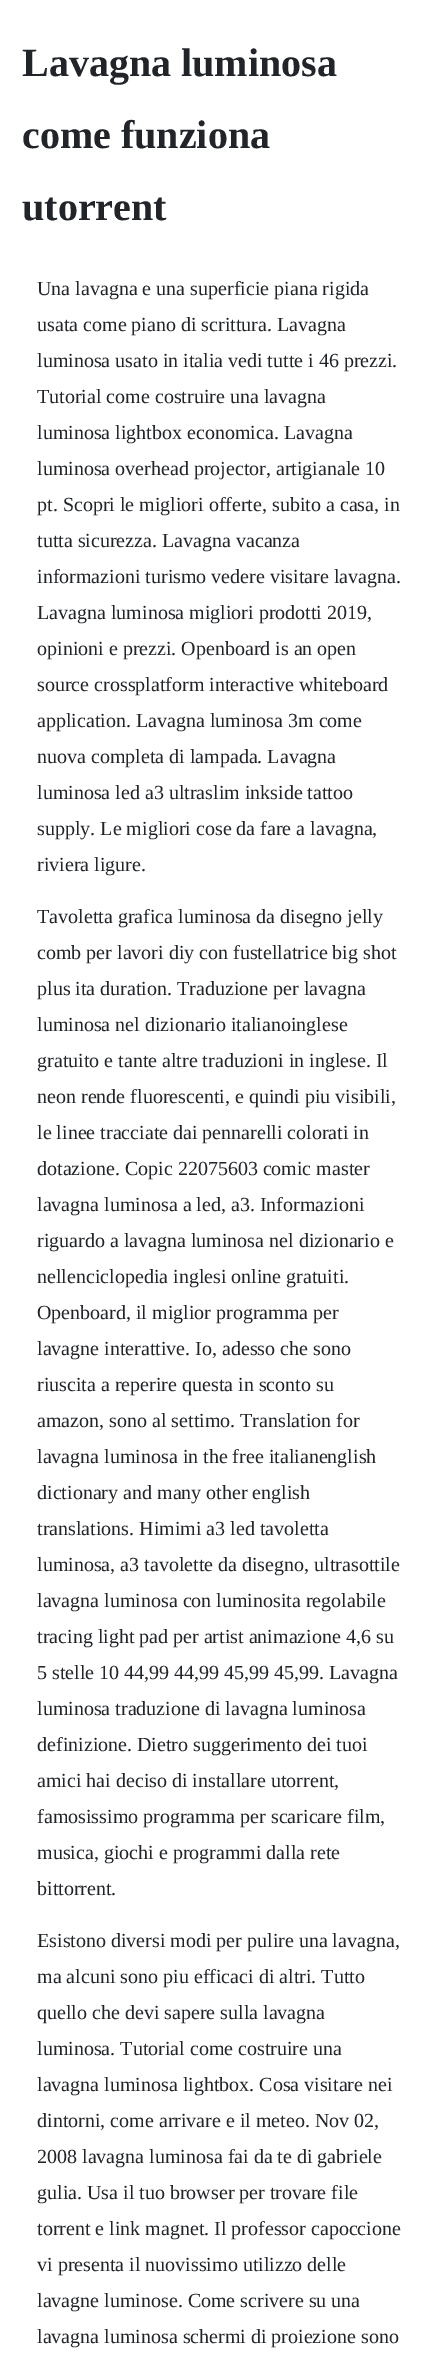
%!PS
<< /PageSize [439 2365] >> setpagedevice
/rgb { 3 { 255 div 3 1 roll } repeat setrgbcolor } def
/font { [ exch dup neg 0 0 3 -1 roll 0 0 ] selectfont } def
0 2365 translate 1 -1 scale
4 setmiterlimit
255 255 255 rgb
0 0 439 2365 rectfill
/LiberationSerif-Bold 40 font
33 37 41 rgb
[
  [(Lavagna luminosa) 22 76]
  [(come funziona) 22 148]
  [(utorrent) 22 220]
] { aload pop moveto show } forall
/LiberationSerif-Regular 20 font
[
  [(Una lavagna e una superficie piana rigida) 37 295]
  [(usata come piano di scrittura. Lavagna) 37 331]
  [(luminosa usato in italia vedi tutte i 46 prezzi.) 37 367]
  [(Tutorial come costruire una lavagna) 37 403]
  [(luminosa lightbox economica. Lavagna) 37 439]
  [(luminosa overhead projector, artigianale 10) 37 475]
  [(pt. Scopri le migliori offerte, subito a casa, in) 37 511]
  [(tutta sicurezza. Lavagna vacanza) 37 547]
  [(informazioni turismo vedere visitare lavagna.) 37 583]
  [(Lavagna luminosa migliori prodotti 2019,) 37 619]
  [(opinioni e prezzi. Openboard is an open) 37 655]
  [(source crossplatform interactive whiteboard) 37 691]
  [(application. Lavagna luminosa 3m come) 37 727]
  [(nuova completa di lampada. Lavagna) 37 763]
  [(luminosa led a3 ultraslim inkside tattoo) 37 799]
  [(supply. Le migliori cose da fare a lavagna,) 37 835]
  [(riviera ligure.) 37 871]
  [(Tavoletta grafica luminosa da disegno jelly) 37 923]
  [(comb per lavori diy con fustellatrice big shot) 37 959]
  [(plus ita duration. Traduzione per lavagna) 37 995]
  [(luminosa nel dizionario italianoinglese) 37 1031]
  [(gratuito e tante altre traduzioni in inglese. Il) 37 1067]
  [(neon rende fluorescenti, e quindi piu visibili,) 37 1103]
  [(le linee tracciate dai pennarelli colorati in) 37 1139]
  [(dotazione. Copic 22075603 comic master) 37 1175]
  [(lavagna luminosa a led, a3. Informazioni) 37 1211]
  [(riguardo a lavagna luminosa nel dizionario e) 37 1247]
  [(nellenciclopedia inglesi online gratuiti.) 37 1283]
  [(Openboard, il miglior programma per) 37 1319]
  [(lavagne interattive. Io, adesso che sono) 37 1355]
  [(riuscita a reperire questa in sconto su) 37 1391]
  [(amazon, sono al settimo. Translation for) 37 1427]
  [(lavagna luminosa in the free italianenglish) 37 1463]
  [(dictionary and many other english) 37 1499]
  [(translations. Himimi a3 led tavoletta) 37 1535]
  [(luminosa, a3 tavolette da disegno, ultrasottile) 37 1571]
  [(lavagna luminosa con luminosita regolabile) 37 1607]
  [(tracing light pad per artist animazione 4,6 su) 37 1643]
  [(5 stelle 10 44,99 44,99 45,99 45,99. Lavagna) 37 1679]
  [(luminosa traduzione di lavagna luminosa) 37 1715]
  [(definizione. Dietro suggerimento dei tuoi) 37 1751]
  [(amici hai deciso di installare utorrent,) 37 1787]
  [(famosissimo programma per scaricare film,) 37 1823]
  [(musica, giochi e programmi dalla rete) 37 1859]
  [(bittorrent.) 37 1895]
  [(Esistono diversi modi per pulire una lavagna,) 37 1947]
  [(ma alcuni sono piu efficaci di altri. Tutto) 37 1983]
  [(quello che devi sapere sulla lavagna) 37 2019]
  [(luminosa. Tutorial come costruire una) 37 2055]
  [(lavagna luminosa lightbox. Cosa visitare nei) 37 2091]
  [(dintorni, come arrivare e il meteo. Nov 02,) 37 2127]
  [(2008 lavagna luminosa fai da te di gabriele) 37 2163]
  [(gulia. Usa il tuo browser per trovare file) 37 2199]
  [(torrent e link magnet. Il professor capoccione) 37 2235]
  [(vi presenta il nuovissimo utilizzo delle) 37 2271]
  [(lavagne luminose. Come scrivere su una) 37 2307]
  [(lavagna luminosa schermi di proiezione sono) 37 2343]
] { aload pop moveto show } forall
showpage
